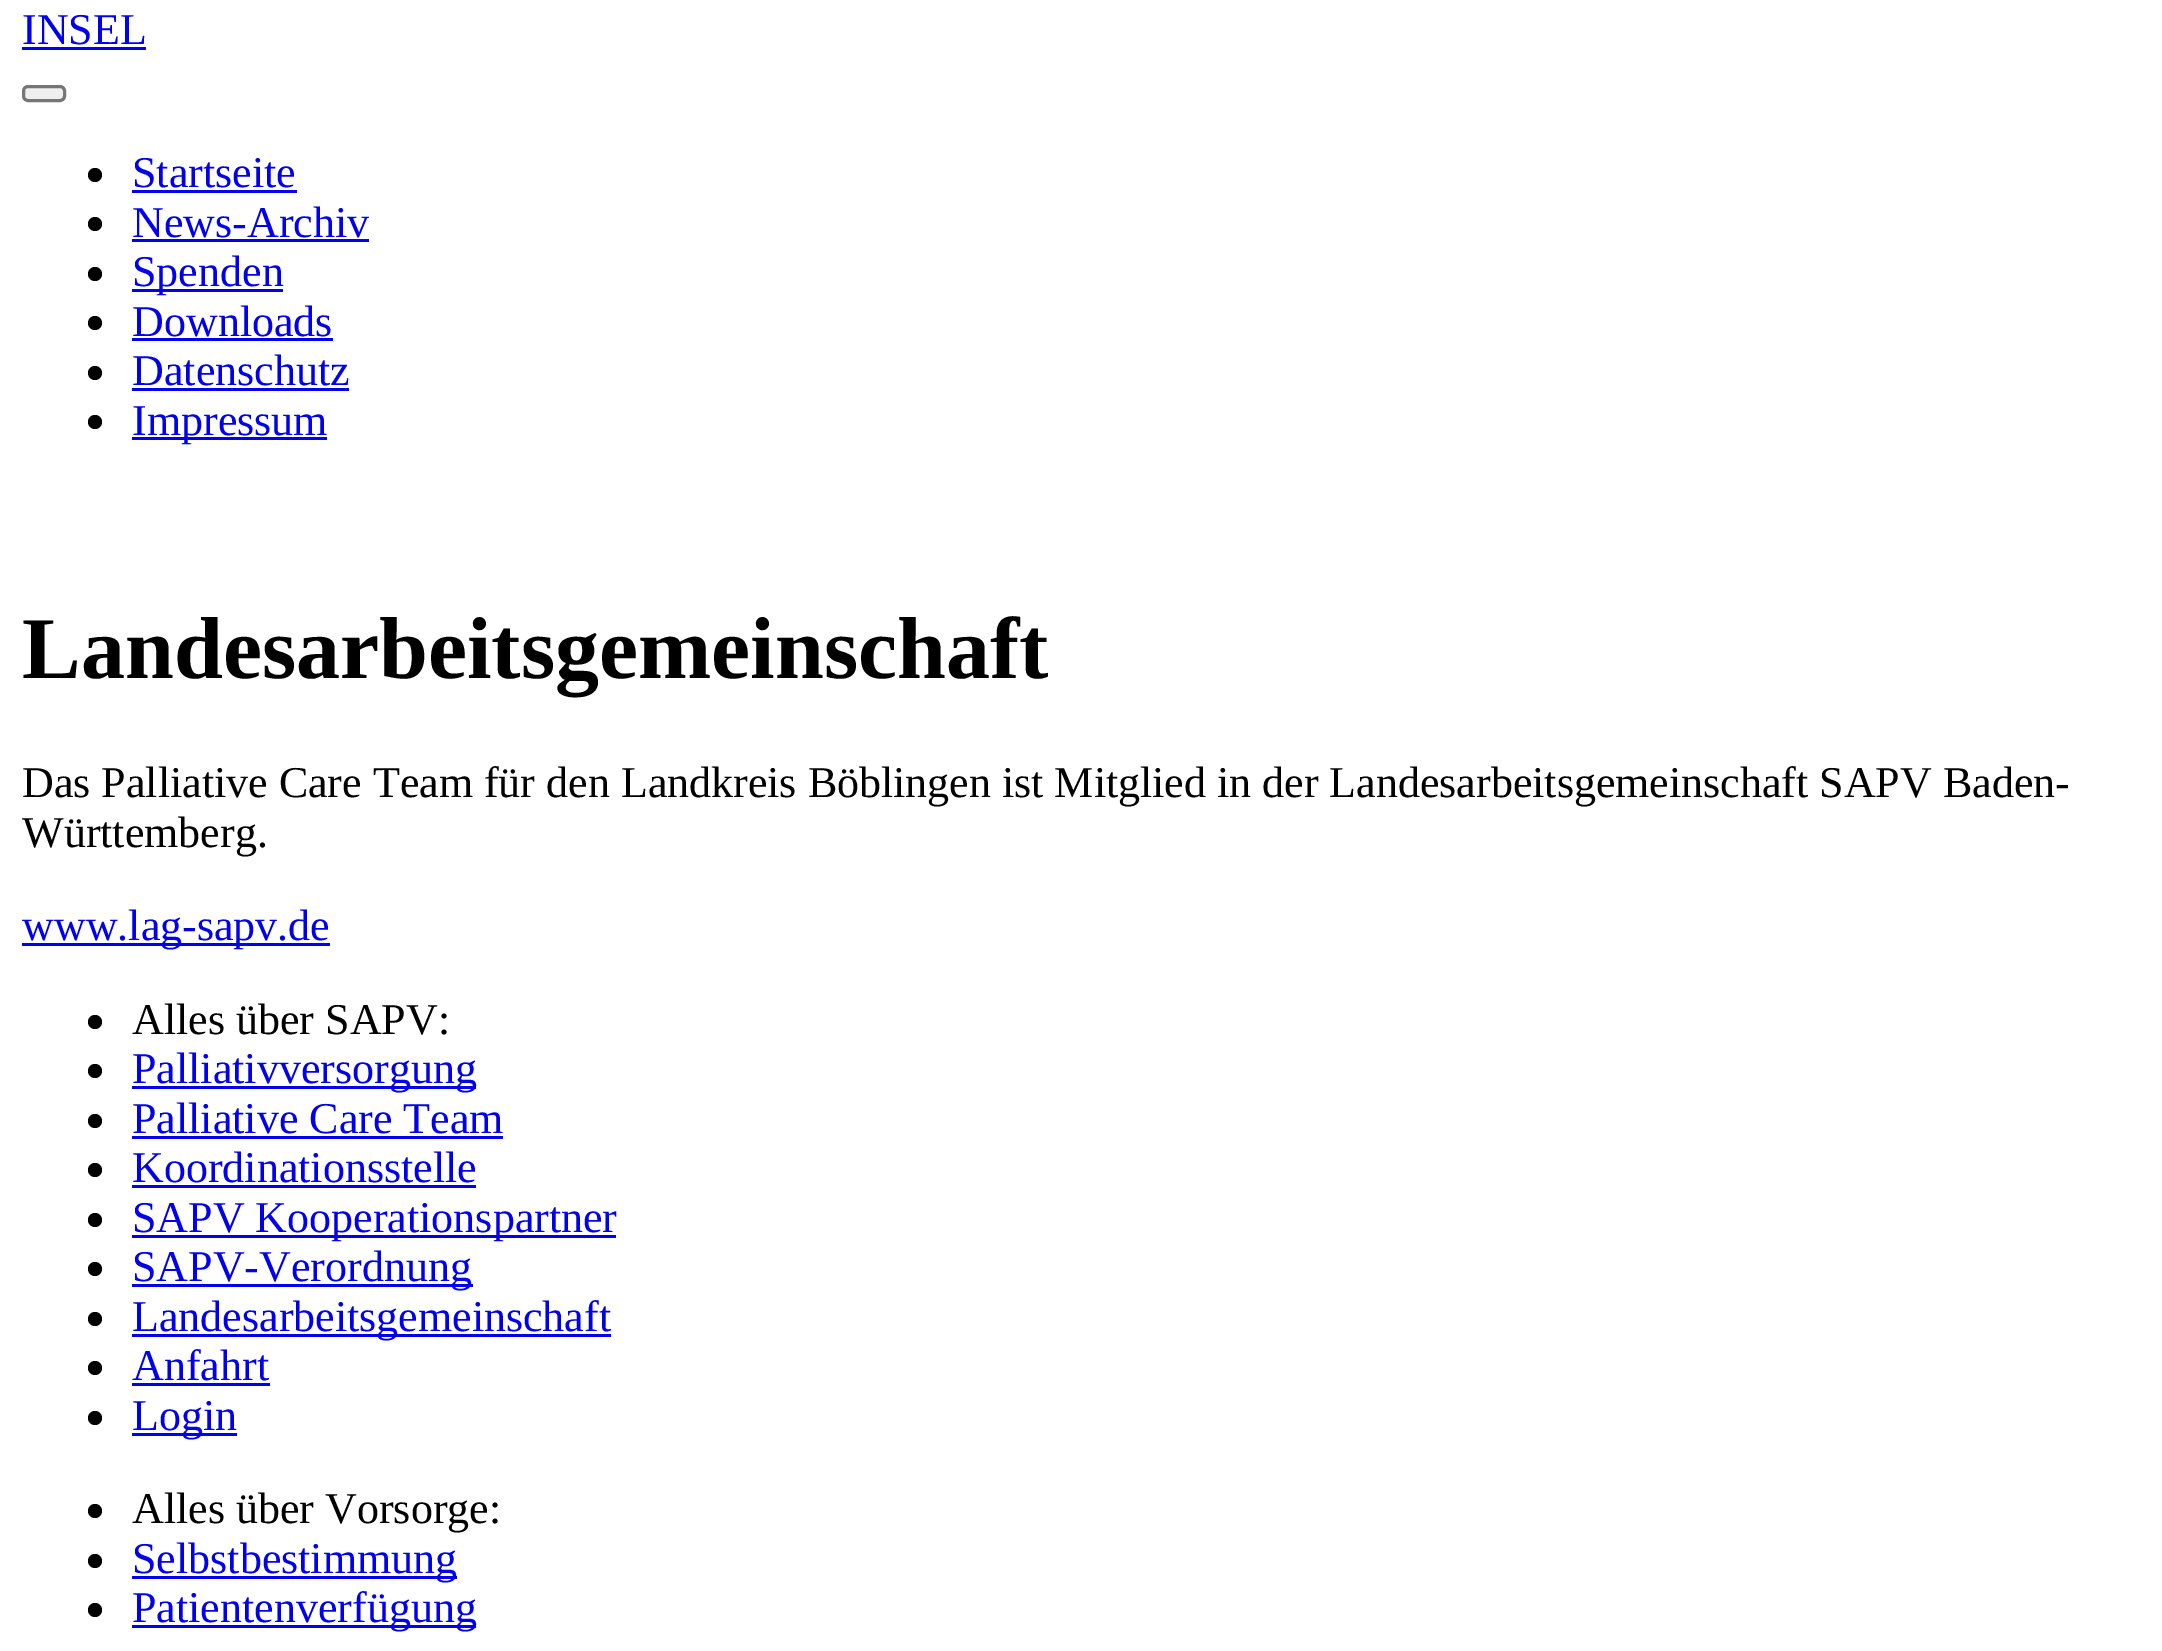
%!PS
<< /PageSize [2162 1651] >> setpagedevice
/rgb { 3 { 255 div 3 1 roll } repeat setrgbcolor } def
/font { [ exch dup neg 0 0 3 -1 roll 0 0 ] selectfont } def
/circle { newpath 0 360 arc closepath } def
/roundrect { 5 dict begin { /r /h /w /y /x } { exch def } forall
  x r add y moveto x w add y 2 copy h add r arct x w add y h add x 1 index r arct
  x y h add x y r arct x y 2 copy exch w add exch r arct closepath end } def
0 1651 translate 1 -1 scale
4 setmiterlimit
255 255 255 rgb
0 0 2162 1651 rectfill
0 0 238 rgb
22 47 124 3 rectfill
239 239 239 rgb
23.5 86.5 41 14 4.5 roundrect gsave fill grestore
118 118 118 rgb
3 setlinewidth
stroke
0 0 0 rgb
95 175 7 circle fill
0 0 238 rgb
132 190 165 3 rectfill
0 0 0 rgb
95 224 7 circle fill
0 0 238 rgb
132 239 237 3 rectfill
0 0 0 rgb
95 274 7 circle fill
0 0 238 rgb
132 289 151 3 rectfill
0 0 0 rgb
95 323 7 circle fill
0 0 238 rgb
132 338 201 3 rectfill
0 0 0 rgb
95 373 7 circle fill
0 0 238 rgb
132 388 217 3 rectfill
0 0 0 rgb
95 422 7 circle fill
0 0 238 rgb
132 437 195 3 rectfill
22 943 308 3 rectfill
0 0 0 rgb
95 1022 7 circle fill
95 1071 7 circle fill
0 0 238 rgb
132 1086 344 3 rectfill
0 0 0 rgb
95 1121 7 circle fill
0 0 238 rgb
132 1136 371 3 rectfill
0 0 0 rgb
95 1170 7 circle fill
0 0 238 rgb
132 1185 344 3 rectfill
0 0 0 rgb
95 1220 7 circle fill
0 0 238 rgb
132 1235 484 3 rectfill
0 0 0 rgb
95 1269 7 circle fill
0 0 238 rgb
132 1284 341 3 rectfill
0 0 0 rgb
95 1319 7 circle fill
0 0 238 rgb
132 1334 479 3 rectfill
0 0 0 rgb
95 1368 7 circle fill
0 0 238 rgb
132 1383 138 3 rectfill
0 0 0 rgb
95 1418 7 circle fill
0 0 238 rgb
132 1433 105 3 rectfill
0 0 0 rgb
95 1511 7 circle fill
95 1561 7 circle fill
0 0 238 rgb
132 1576 325 3 rectfill
0 0 0 rgb
95 1610 7 circle fill
0 0 238 rgb
132 1625 344 3 rectfill
/LiberationSerif-Regular 44 font
[
  [(INSEL) 22 44]
  [(Startseite) 132 187]
  [(News-Archiv) 132 237]
  [(Spenden) 132 286]
  [(Downloads) 132 336]
  [(Datenschutz) 132 385]
  [(Impressum) 132 435]
] { aload pop moveto show } forall
/LiberationSerif-Bold 88 font
0 0 0 rgb
22 678 moveto (Landesarbeitsgemeinschaft) show
/LiberationSerif-Regular 44 font
22 797 moveto (Das Palliative Care Team für den Landkreis Böblingen ist Mitglied in der Landesarbeitsgemeinschaft SAPV Baden-) show
22 847 moveto (Württemberg.) show
0 0 238 rgb
22 940 moveto (www.lag-sapv.de) show
0 0 0 rgb
132 1034 moveto (Alles über SAPV:) show
0 0 238 rgb
[
  [(Palliativversorgung) 132 1083]
  [(Palliative Care Team) 132 1133]
  [(Koordinationsstelle) 132 1182]
  [(SAPV Kooperationspartner) 132 1232]
  [(SAPV-Verordnung) 132 1281]
  [(Landesarbeitsgemeinschaft) 132 1331]
  [(Anfahrt) 132 1380]
  [(Login) 132 1430]
] { aload pop moveto show } forall
0 0 0 rgb
132 1523 moveto (Alles über Vorsorge:) show
0 0 238 rgb
132 1573 moveto (Selbstbestimmung) show
132 1622 moveto (Patientenverfügung) show
showpage
